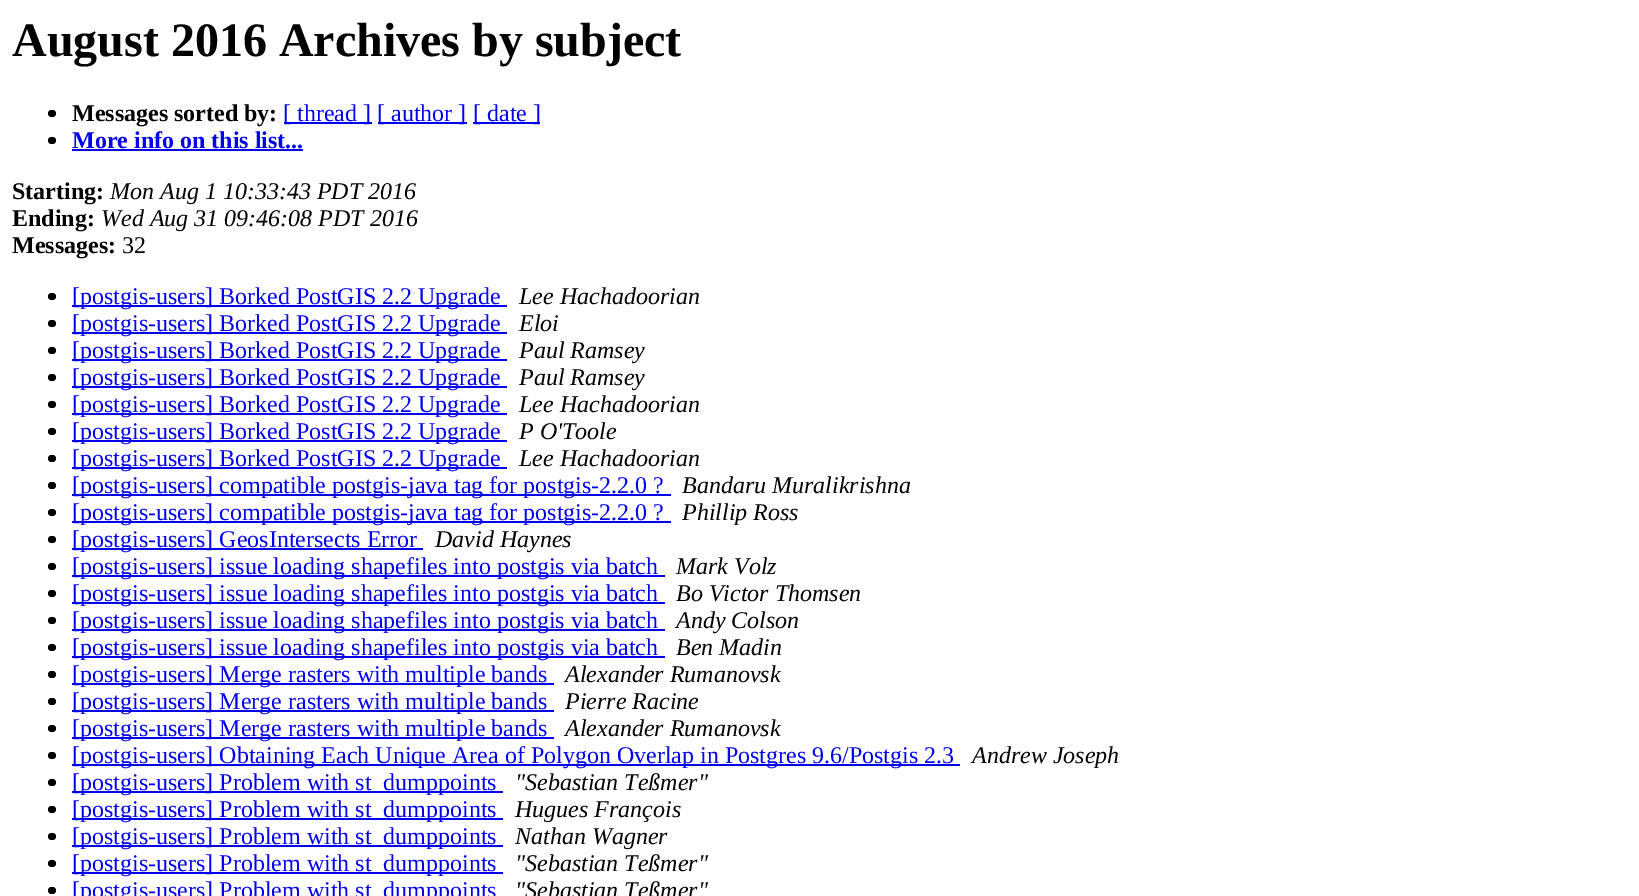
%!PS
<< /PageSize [1639 896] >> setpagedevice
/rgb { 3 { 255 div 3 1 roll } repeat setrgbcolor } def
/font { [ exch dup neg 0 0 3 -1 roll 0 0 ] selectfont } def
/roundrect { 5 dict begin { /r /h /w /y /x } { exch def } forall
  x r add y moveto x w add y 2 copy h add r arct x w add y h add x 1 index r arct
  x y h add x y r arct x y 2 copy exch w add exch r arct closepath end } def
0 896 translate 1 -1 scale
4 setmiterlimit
255 255 255 rgb
0 0 1639 896 rectfill
0 0 0 rgb
48 110 8 7 3.5 roundrect fill
[
  [284 122 88 2 0 0 238]
  [378 122 89 2 0 0 238]
  [473 122 67 2 0 0 238]
] { aload pop rgb rectfill } forall
0 0 0 rgb
48 137 8 7 3.5 roundrect fill
0 0 238 rgb
72 149 231 2 rectfill
0 0 0 rgb
48 293 8 7 3.5 roundrect fill
0 0 238 rgb
72 305 435 2 rectfill
0 0 0 rgb
48 320 8 7 3.5 roundrect fill
0 0 238 rgb
72 332 435 2 rectfill
0 0 0 rgb
48 347 8 7 3.5 roundrect fill
0 0 238 rgb
72 359 435 2 rectfill
0 0 0 rgb
48 374 8 7 3.5 roundrect fill
0 0 238 rgb
72 386 435 2 rectfill
0 0 0 rgb
48 401 8 7 3.5 roundrect fill
0 0 238 rgb
72 413 435 2 rectfill
0 0 0 rgb
48 428 8 7 3.5 roundrect fill
0 0 238 rgb
72 440 435 2 rectfill
0 0 0 rgb
48 455 8 7 3.5 roundrect fill
0 0 238 rgb
72 467 435 2 rectfill
0 0 0 rgb
48 482 8 7 3.5 roundrect fill
0 0 238 rgb
72 494 599 2 rectfill
0 0 0 rgb
48 509 8 7 3.5 roundrect fill
0 0 238 rgb
72 521 599 2 rectfill
0 0 0 rgb
48 536 8 7 3.5 roundrect fill
0 0 238 rgb
72 548 351 2 rectfill
0 0 0 rgb
48 563 8 7 3.5 roundrect fill
0 0 238 rgb
72 575 593 2 rectfill
0 0 0 rgb
48 590 8 7 3.5 roundrect fill
0 0 238 rgb
72 602 593 2 rectfill
0 0 0 rgb
48 617 8 7 3.5 roundrect fill
0 0 238 rgb
72 629 593 2 rectfill
0 0 0 rgb
48 644 8 7 3.5 roundrect fill
0 0 238 rgb
72 656 593 2 rectfill
0 0 0 rgb
48 671 8 7 3.5 roundrect fill
0 0 238 rgb
72 683 482 2 rectfill
0 0 0 rgb
48 698 8 7 3.5 roundrect fill
0 0 238 rgb
72 710 482 2 rectfill
0 0 0 rgb
48 725 8 7 3.5 roundrect fill
0 0 238 rgb
72 737 482 2 rectfill
0 0 0 rgb
48 752 8 7 3.5 roundrect fill
0 0 238 rgb
72 764 888 2 rectfill
0 0 0 rgb
48 779 8 7 3.5 roundrect fill
0 0 238 rgb
72 791 431 2 rectfill
0 0 0 rgb
48 806 8 7 3.5 roundrect fill
0 0 238 rgb
72 818 431 2 rectfill
0 0 0 rgb
48 833 8 7 3.5 roundrect fill
0 0 238 rgb
72 845 431 2 rectfill
0 0 0 rgb
48 860 8 7 3.5 roundrect fill
0 0 238 rgb
72 872 431 2 rectfill
0 0 0 rgb
48 887 8 7 3.5 roundrect fill
/LiberationSerif-Bold 48 font
12 56 moveto (August 2016 Archives by subject) show
/LiberationSerif-Bold 24 font
72 121 moveto (Messages sorted by:) show
/LiberationSerif-Regular 24 font
0 0 238 rgb
[
  [([ thread ]) 283 121]
  [([ author ]) 377 121]
  [([ date ]) 473 121]
] { aload pop moveto show } forall
/LiberationSerif-Bold 24 font
72 148 moveto (More info on this list...) show
0 0 0 rgb
12 199 moveto (Starting:) show
/LiberationSerif-Italic 24 font
110 199 moveto (Mon Aug 1 10:33:43 PDT 2016) show
/LiberationSerif-Bold 24 font
12 226 moveto (Ending:) show
/LiberationSerif-Italic 24 font
101 226 moveto (Wed Aug 31 09:46:08 PDT 2016) show
/LiberationSerif-Bold 24 font
12 253 moveto (Messages:) show
/LiberationSerif-Regular 24 font
122 253 moveto (32) show
0 0 238 rgb
72 304 moveto ([postgis-users] Borked PostGIS 2.2 Upgrade) show
/LiberationSerif-Italic 24 font
0 0 0 rgb
519 304 moveto (Lee Hachadoorian) show
/LiberationSerif-Regular 24 font
0 0 238 rgb
72 331 moveto ([postgis-users] Borked PostGIS 2.2 Upgrade) show
/LiberationSerif-Italic 24 font
0 0 0 rgb
519 331 moveto (Eloi) show
/LiberationSerif-Regular 24 font
0 0 238 rgb
72 358 moveto ([postgis-users] Borked PostGIS 2.2 Upgrade) show
/LiberationSerif-Italic 24 font
0 0 0 rgb
519 358 moveto (Paul Ramsey) show
/LiberationSerif-Regular 24 font
0 0 238 rgb
72 385 moveto ([postgis-users] Borked PostGIS 2.2 Upgrade) show
/LiberationSerif-Italic 24 font
0 0 0 rgb
519 385 moveto (Paul Ramsey) show
/LiberationSerif-Regular 24 font
0 0 238 rgb
72 412 moveto ([postgis-users] Borked PostGIS 2.2 Upgrade) show
/LiberationSerif-Italic 24 font
0 0 0 rgb
519 412 moveto (Lee Hachadoorian) show
/LiberationSerif-Regular 24 font
0 0 238 rgb
72 439 moveto ([postgis-users] Borked PostGIS 2.2 Upgrade) show
/LiberationSerif-Italic 24 font
0 0 0 rgb
519 439 moveto (P O'Toole) show
/LiberationSerif-Regular 24 font
0 0 238 rgb
72 466 moveto ([postgis-users] Borked PostGIS 2.2 Upgrade) show
/LiberationSerif-Italic 24 font
0 0 0 rgb
519 466 moveto (Lee Hachadoorian) show
/LiberationSerif-Regular 24 font
0 0 238 rgb
72 493 moveto ([postgis-users] compatible postgis-java tag for postgis-2.2.0 ?) show
/LiberationSerif-Italic 24 font
0 0 0 rgb
682 493 moveto (Bandaru Muralikrishna) show
/LiberationSerif-Regular 24 font
0 0 238 rgb
72 520 moveto ([postgis-users] compatible postgis-java tag for postgis-2.2.0 ?) show
/LiberationSerif-Italic 24 font
0 0 0 rgb
682 520 moveto (Phillip Ross) show
/LiberationSerif-Regular 24 font
0 0 238 rgb
72 547 moveto ([postgis-users] GeosIntersects Error) show
/LiberationSerif-Italic 24 font
0 0 0 rgb
435 547 moveto (David Haynes) show
/LiberationSerif-Regular 24 font
0 0 238 rgb
72 574 moveto ([postgis-users] issue loading shapefiles into postgis via batch) show
/LiberationSerif-Italic 24 font
0 0 0 rgb
676 574 moveto (Mark Volz) show
/LiberationSerif-Regular 24 font
0 0 238 rgb
72 601 moveto ([postgis-users] issue loading shapefiles into postgis via batch) show
/LiberationSerif-Italic 24 font
0 0 0 rgb
676 601 moveto (Bo Victor Thomsen) show
/LiberationSerif-Regular 24 font
0 0 238 rgb
72 628 moveto ([postgis-users] issue loading shapefiles into postgis via batch) show
/LiberationSerif-Italic 24 font
0 0 0 rgb
676 628 moveto (Andy Colson) show
/LiberationSerif-Regular 24 font
0 0 238 rgb
72 655 moveto ([postgis-users] issue loading shapefiles into postgis via batch) show
/LiberationSerif-Italic 24 font
0 0 0 rgb
676 655 moveto (Ben Madin) show
/LiberationSerif-Regular 24 font
0 0 238 rgb
72 682 moveto ([postgis-users] Merge rasters with multiple bands) show
/LiberationSerif-Italic 24 font
0 0 0 rgb
565 682 moveto (Alexander Rumanovsk) show
/LiberationSerif-Regular 24 font
0 0 238 rgb
72 709 moveto ([postgis-users] Merge rasters with multiple bands) show
/LiberationSerif-Italic 24 font
0 0 0 rgb
565 709 moveto (Pierre Racine) show
/LiberationSerif-Regular 24 font
0 0 238 rgb
72 736 moveto ([postgis-users] Merge rasters with multiple bands) show
/LiberationSerif-Italic 24 font
0 0 0 rgb
565 736 moveto (Alexander Rumanovsk) show
/LiberationSerif-Regular 24 font
0 0 238 rgb
72 763 moveto ([postgis-users] Obtaining Each Unique Area of Polygon Overlap in Postgres 9.6/Postgis 2.3) show
/LiberationSerif-Italic 24 font
0 0 0 rgb
972 763 moveto (Andrew Joseph) show
/LiberationSerif-Regular 24 font
0 0 238 rgb
72 790 moveto ([postgis-users] Problem with st_dumppoints) show
/LiberationSerif-Italic 24 font
0 0 0 rgb
515 790 moveto ("Sebastian Teßmer") show
/LiberationSerif-Regular 24 font
0 0 238 rgb
72 817 moveto ([postgis-users] Problem with st_dumppoints) show
/LiberationSerif-Italic 24 font
0 0 0 rgb
515 817 moveto (Hugues François) show
/LiberationSerif-Regular 24 font
0 0 238 rgb
72 844 moveto ([postgis-users] Problem with st_dumppoints) show
/LiberationSerif-Italic 24 font
0 0 0 rgb
515 844 moveto (Nathan Wagner) show
/LiberationSerif-Regular 24 font
0 0 238 rgb
72 871 moveto ([postgis-users] Problem with st_dumppoints) show
/LiberationSerif-Italic 24 font
0 0 0 rgb
515 871 moveto ("Sebastian Teßmer") show
/LiberationSerif-Regular 24 font
0 0 238 rgb
72 898 moveto ([postgis-users] Problem with st_dumppoints) show
/LiberationSerif-Italic 24 font
0 0 0 rgb
515 898 moveto ("Sebastian Teßmer") show
showpage
